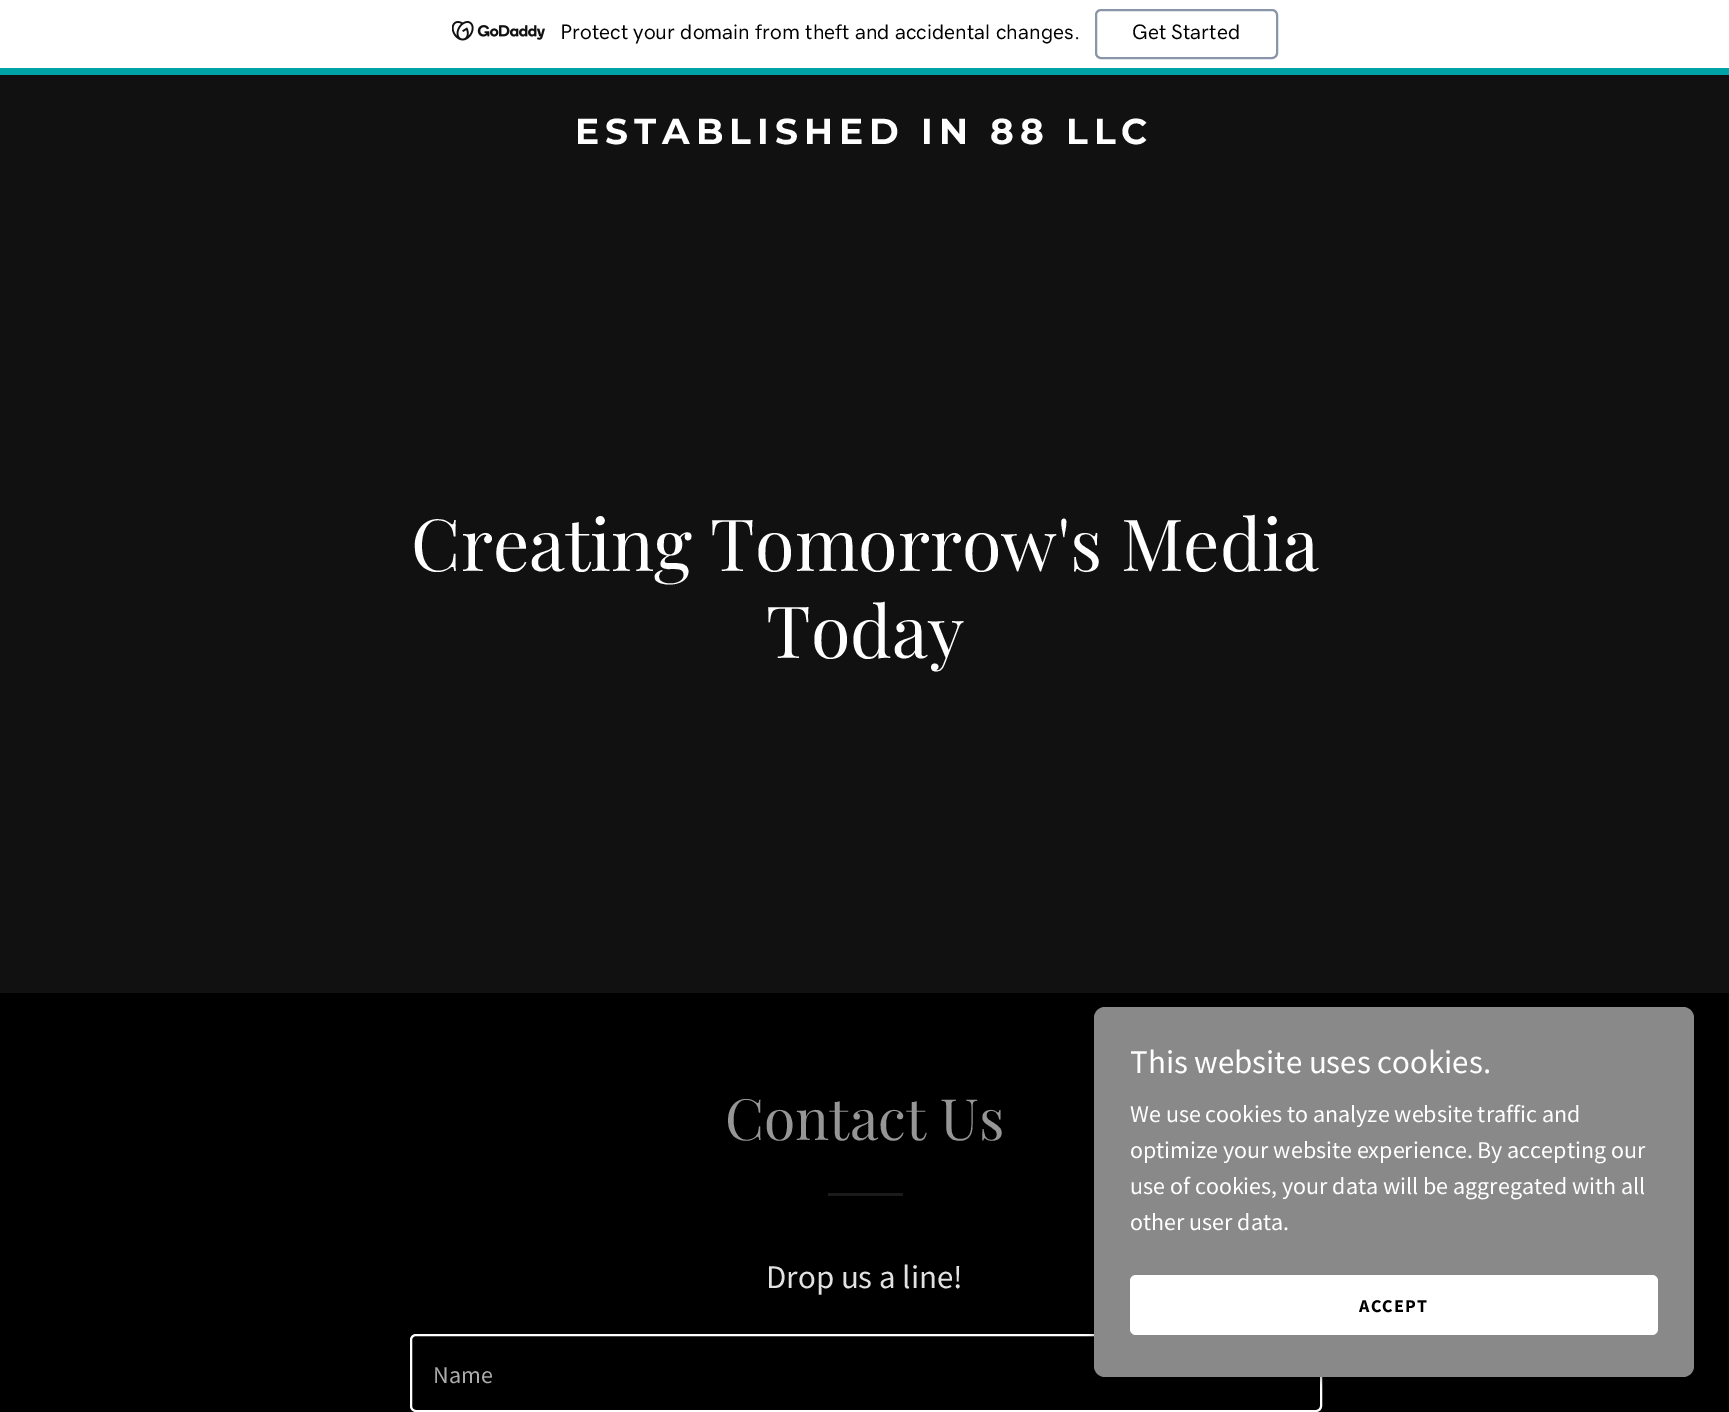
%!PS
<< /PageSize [1729 1412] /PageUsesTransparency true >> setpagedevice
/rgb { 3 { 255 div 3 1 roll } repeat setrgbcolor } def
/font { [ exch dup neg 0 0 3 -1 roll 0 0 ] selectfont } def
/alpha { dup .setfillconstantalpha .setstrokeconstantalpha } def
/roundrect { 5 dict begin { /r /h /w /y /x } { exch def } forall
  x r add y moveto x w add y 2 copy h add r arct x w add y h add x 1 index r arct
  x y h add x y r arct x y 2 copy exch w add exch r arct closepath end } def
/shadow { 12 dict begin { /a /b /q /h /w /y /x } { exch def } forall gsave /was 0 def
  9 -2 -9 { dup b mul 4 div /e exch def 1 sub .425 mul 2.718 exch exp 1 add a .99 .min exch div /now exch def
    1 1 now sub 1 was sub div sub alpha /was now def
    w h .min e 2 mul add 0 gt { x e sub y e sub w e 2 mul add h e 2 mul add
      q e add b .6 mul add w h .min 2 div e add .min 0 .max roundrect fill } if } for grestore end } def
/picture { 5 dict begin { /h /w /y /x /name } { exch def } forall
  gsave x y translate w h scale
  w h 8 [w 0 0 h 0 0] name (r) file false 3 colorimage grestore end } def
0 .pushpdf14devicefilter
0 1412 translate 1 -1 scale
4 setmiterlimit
0 0 0 rgb
0 0 1729 1412 rectfill
255 255 255 rgb
0 0 1729 68 rectfill
0 164 166 rgb
0 68 1729 7 rectfill
(img/1.rgb) 452 21 93 20 picture
137 149 169 rgb
2 setlinewidth
1096 10 181 48 5 roundrect stroke
17 17 17 rgb
0 75 1729 918 rectfill
27 27 27 rgb
828 1193 75 3 rectfill
255 255 255 rgb
411 1335 910 76 5 roundrect stroke
0 0 0 rgb
1094 1010 600 370 11 4.5 0.3 shadow
137 137 137 rgb
1094 1007 600 370 11 roundrect fill
255 255 255 rgb
1130 1275 528 60 6 roundrect fill
/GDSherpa-Medium 21 font
0 0 0 rgb
560 39 moveto (Protect your domain from theft and accidental changes.) show
1132 39 moveto (Get Started) show
/Montserrat-Bold 36 font
255 255 255 rgb
575 144 moveto 6 0 (ESTABLISHED IN 88 LLC) ashow
/PlayfairDisplay-Regular 72 font
411 571 moveto (Creating Tomorrow's Media) show
766 658 moveto (Today) show
/PlayfairDisplay-Regular 57 font
150 150 150 rgb
725 1140 moveto (Contact Us) show
/SourceSansPro-Regular 33 font
226 226 226 rgb
766 1288 moveto (Drop us a line!) show
/SourceSansPro-Regular 24 font
171 171 171 rgb
433 1383 moveto (Name) show
/SourceSansPro-Regular 33 font
255 255 255 rgb
1130 1073 moveto (This website uses cookies.) show
/SourceSansPro-Regular 24 font
[
  [(We use cookies to analyze website traffic and) 1130 1122]
  [(optimize your website experience. By accepting our) 1130 1158]
  [(use of cookies, your data will be aggregated with all) 1130 1194]
  [(other user data.) 1130 1230]
] { aload pop moveto show } forall
/SourceSansPro-Bold 18 font
0 0 0 rgb
1359 1312 moveto 1.25 0 (ACCEPT) ashow
.poppdf14devicefilter showpage
